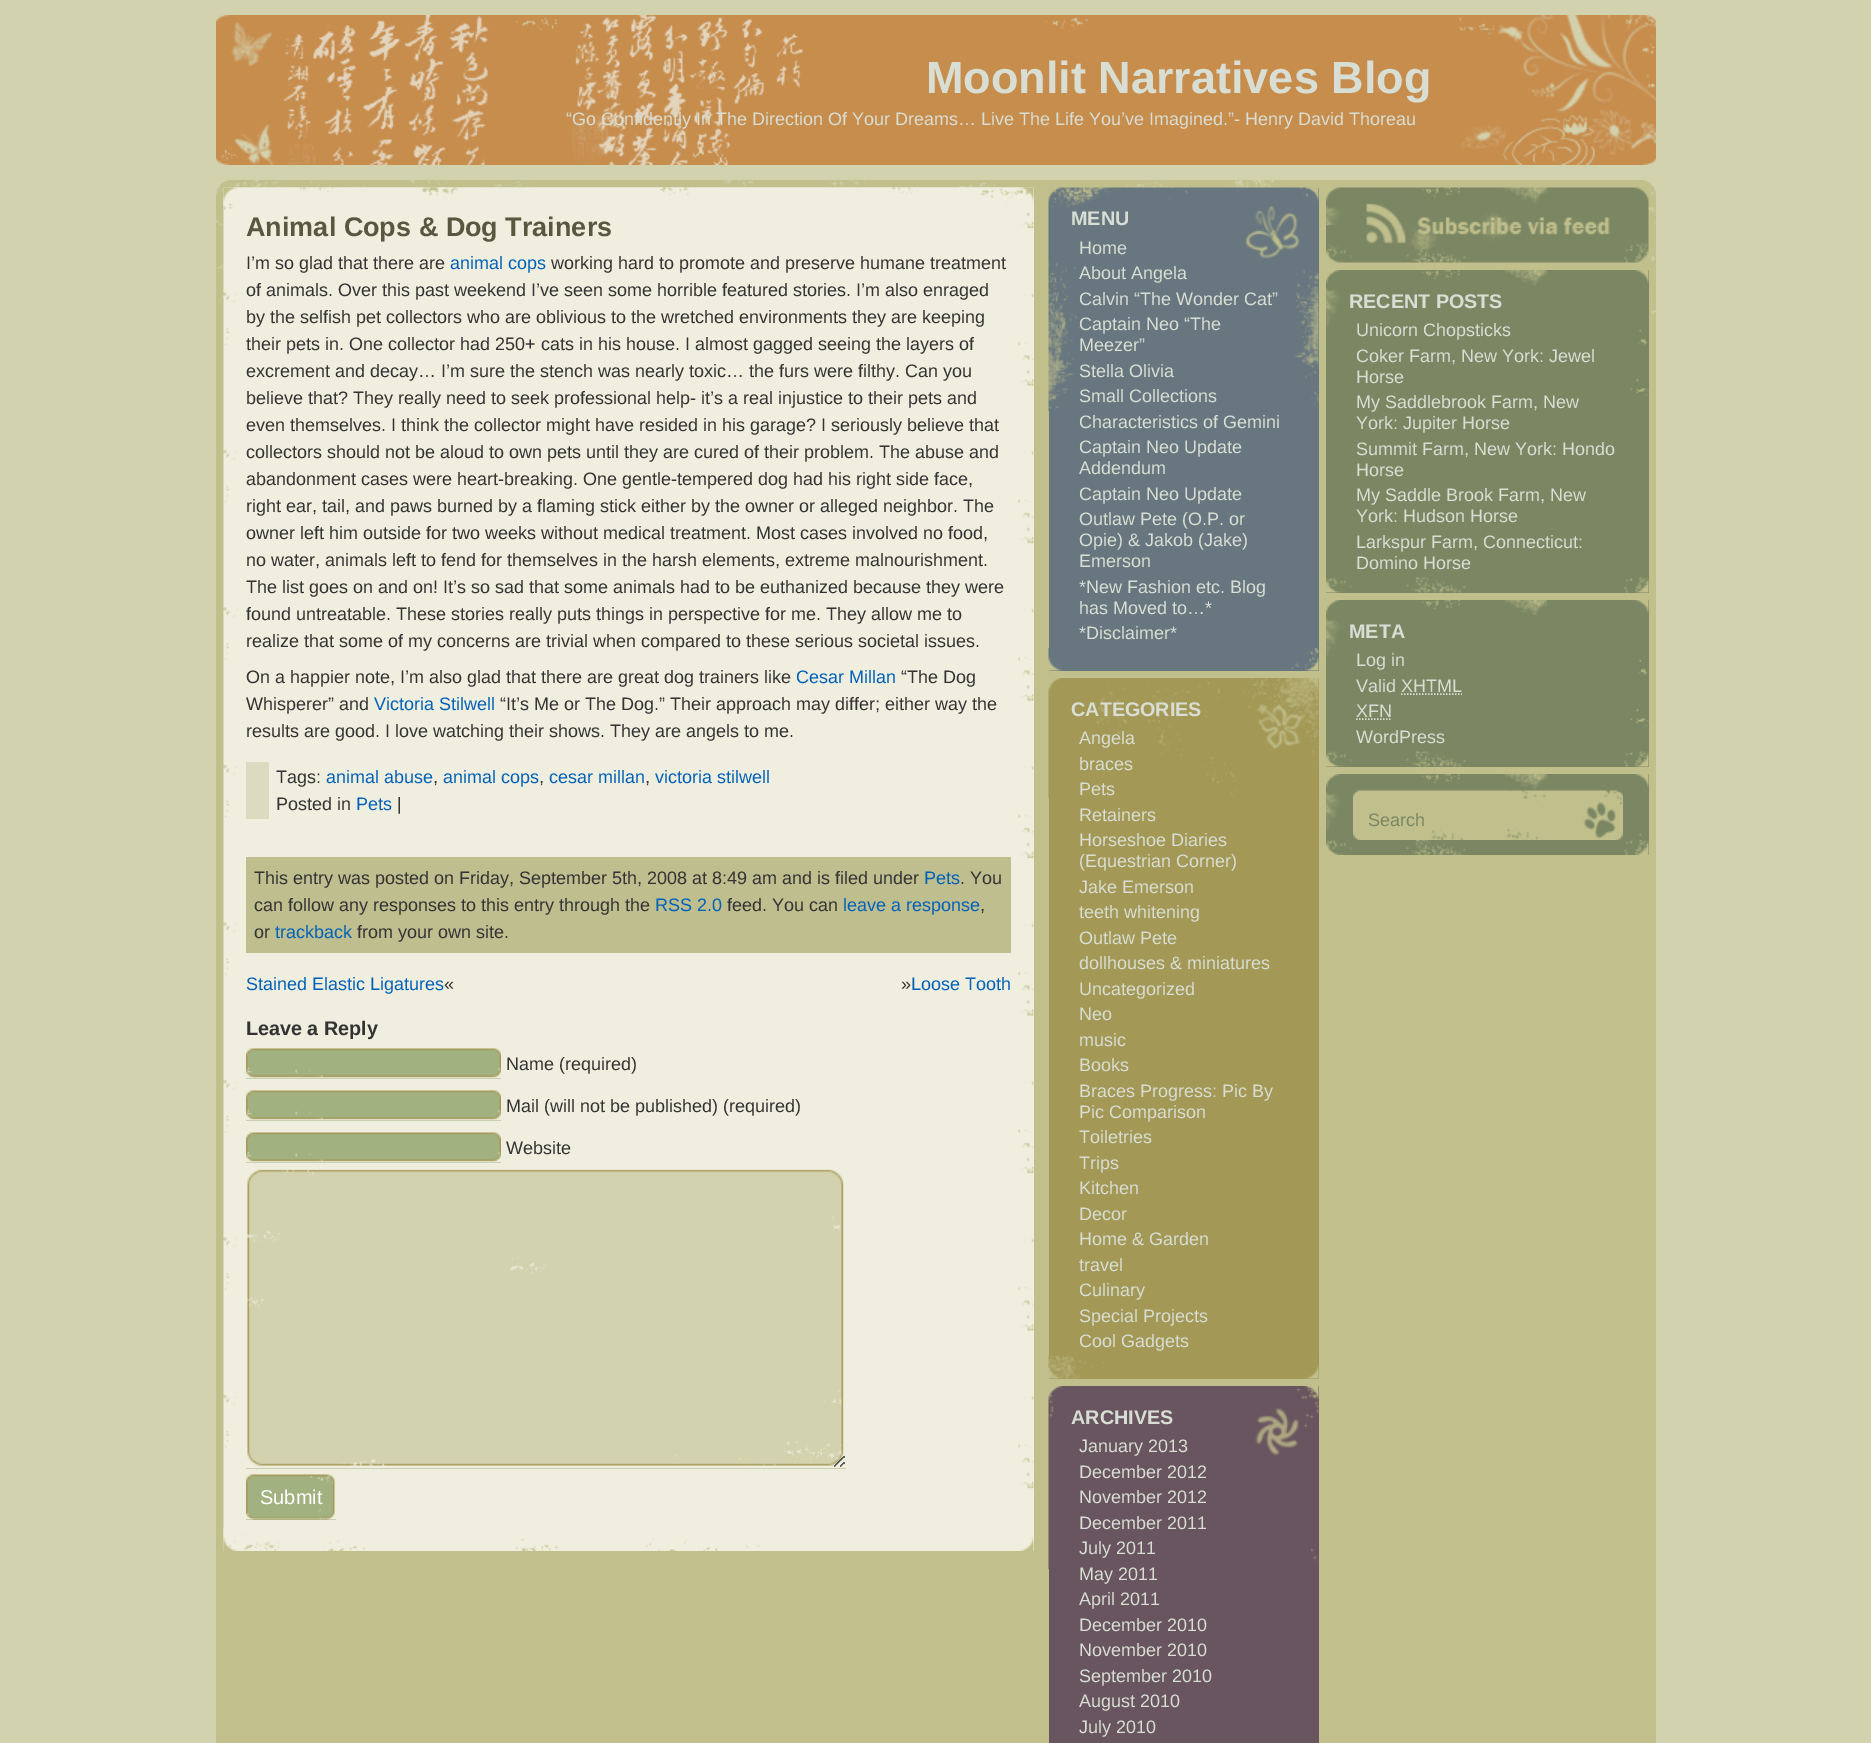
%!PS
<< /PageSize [1871 1743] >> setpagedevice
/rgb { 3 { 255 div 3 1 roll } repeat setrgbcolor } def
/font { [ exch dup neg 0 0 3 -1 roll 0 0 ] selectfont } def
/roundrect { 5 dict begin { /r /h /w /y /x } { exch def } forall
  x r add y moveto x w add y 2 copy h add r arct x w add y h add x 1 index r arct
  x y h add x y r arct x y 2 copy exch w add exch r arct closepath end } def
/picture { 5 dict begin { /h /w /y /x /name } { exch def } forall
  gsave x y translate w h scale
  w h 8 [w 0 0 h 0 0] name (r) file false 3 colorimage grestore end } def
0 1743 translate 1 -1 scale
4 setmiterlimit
211 210 174 rgb
0 0 1871 1743 rectfill
(img/1.rgb) 216 15 1440 150 picture
193 192 140 rgb
216 180 1440 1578 15 roundrect fill
(img/2.rgb) 216 180 1440 134 picture
240 239 223 rgb
1033 188 1 1363 rectfill
(img/3.rgb) 223 187 811 1364 picture
(img/4.rgb) 223 187 811 23 picture
[
  [246 762 23 57 220 219 191]
  [246 857 765 96 191 190 143]
  [246 1078 255 1 162 177 128]
] { aload pop rgb rectfill } forall
(img/5.rgb) 246 1048 255 31 picture
246 1120 255 1 rectfill
(img/5.rgb) 246 1090 255 31 picture
246 1162 255 1 rectfill
(img/5.rgb) 246 1132 255 31 picture
246 1468 600 1 rectfill
(img/6.rgb) 246 1169 600 300 picture
246 1519 90 1 rectfill
(img/7.rgb) 246 1474 90 46 picture
(img/8.rgb) 223 1528 811 23 picture
103 118 127 rgb
1049 188 270 483 rectfill
(img/9.rgb) 1048 187 271 224 picture
(img/10.rgb) 1048 648 271 23 picture
163 152 86 rgb
1049 678 270 701 rectfill
(img/11.rgb) 1048 678 271 120 picture
(img/12.rgb) 1048 1356 271 23 picture
105 85 95 rgb
1049 1386 270 357 rectfill
(img/13.rgb) 1048 1386 271 183 picture
(img/14.rgb) 1326 187 323 76 picture
123 135 99 rgb
1326 270 323 323 rectfill
(img/15.rgb) 1326 270 323 126 picture
(img/16.rgb) 1326 577 323 16 picture
1326 600 323 167 rectfill
(img/15.rgb) 1326 600 323 126 picture
216 222 211 rgb
1.5 setlinewidth
[1.5 1.5] 0 setdash
1401 694 moveto 1462 694 lineto stroke
1356 719 moveto 1392 719 lineto stroke
(img/16.rgb) 1326 751 323 16 picture
123 135 99 rgb
1648 774 1 81 rectfill
(img/17.rgb) 1326 774 323 75 picture
(img/18.rgb) 1353 790 270 50 picture
(img/19.rgb) 1583 801 37 38 picture
(img/20.rgb) 1326 840 323 15 picture
/LiberationSans-Bold 45 font
216 222 211 rgb
926 93 moveto (Moonlit Narratives Blog) show
/LiberationSans-Regular 18 font
566 125 moveto (“Go Confidently In The Direction Of Your Dreams… Live The Life You’ve Imagined.”- Henry David Thoreau) show
/LiberationSans-Bold 27 font
88 87 63 rgb
246 236 moveto (Animal Cops & Dog Trainers) show
/LiberationSans-Regular 18 font
51 51 51 rgb
246 269 moveto (I’m so glad that there are) show
1 97 185 rgb
450 269 moveto (animal cops) show
51 51 51 rgb
[
  [(working hard to promote and preserve humane treatment) 551 269]
  [(of animals. Over this past weekend I’ve seen some horrible featured stories. I’m also enraged) 246 296]
  [(by the selfish pet collectors who are oblivious to the wretched environments they are keeping) 246 323]
  [(their pets in. One collector had 250+ cats in his house. I almost gagged seeing the layers of) 246 350]
  [(excrement and decay… I’m sure the stench was nearly toxic… the furs were filthy. Can you) 246 377]
  [(believe that? They really need to seek professional help- it’s a real injustice to their pets and) 246 404]
  [(even themselves. I think the collector might have resided in his garage? I seriously believe that) 246 431]
  [(collectors should not be aloud to own pets until they are cured of their problem. The abuse and) 246 458]
  [(abandonment cases were heart-breaking. One gentle-tempered dog had his right side face,) 246 485]
  [(right ear, tail, and paws burned by a flaming stick either by the owner or alleged neighbor. The) 246 512]
  [(owner left him outside for two weeks without medical treatment. Most cases involved no food,) 246 539]
  [(no water, animals left to fend for themselves in the harsh elements, extreme malnourishment.) 246 566]
  [(The list goes on and on! It’s so sad that some animals had to be euthanized because they were) 246 593]
  [(found untreatable. These stories really puts things in perspective for me. They allow me to) 246 620]
  [(realize that some of my concerns are trivial when compared to these serious societal issues.) 246 647]
  [(On a happier note, I’m also glad that there are great dog trainers like) 246 683]
] { aload pop moveto show } forall
1 97 185 rgb
796 683 moveto (Cesar Millan) show
51 51 51 rgb
901 683 moveto (“The Dog) show
246 710 moveto (Whisperer” and) show
1 97 185 rgb
374 710 moveto (Victoria Stilwell) show
51 51 51 rgb
[
  [(“It’s Me or The Dog.” Their approach may differ; either way the) 500 710]
  [(results are good. I love watching their shows. They are angels to me.) 246 737]
  [(Tags:) 276 783]
] { aload pop moveto show } forall
1 97 185 rgb
326 783 moveto (animal abuse) show
51 51 51 rgb
433 783 moveto (,) show
1 97 185 rgb
443 783 moveto (animal cops) show
51 51 51 rgb
539 783 moveto (,) show
1 97 185 rgb
549 783 moveto (cesar millan) show
51 51 51 rgb
645 783 moveto (,) show
1 97 185 rgb
655 783 moveto (victoria stilwell) show
51 51 51 rgb
276 810 moveto (Posted in) show
1 97 185 rgb
356 810 moveto (Pets) show
51 51 51 rgb
397 810 moveto (|) show
254 884 moveto (This entry was posted on Friday, September 5th, 2008 at 8:49 am and is filed under) show
1 97 185 rgb
924 884 moveto (Pets) show
51 51 51 rgb
960 884 moveto (. You) show
254 911 moveto (can follow any responses to this entry through the) show
1 97 185 rgb
655 911 moveto (RSS 2.0) show
51 51 51 rgb
727 911 moveto (feed. You can) show
1 97 185 rgb
843 911 moveto (leave a response) show
51 51 51 rgb
980 911 moveto (,) show
254 938 moveto (or) show
1 97 185 rgb
275 938 moveto (trackback) show
51 51 51 rgb
357 938 moveto (from your own site.) show
1 97 185 rgb
246 990 moveto (Stained Elastic Ligatures) show
51 51 51 rgb
444 990 moveto («) show
901 990 moveto (») show
1 97 185 rgb
911 990 moveto (Loose Tooth) show
/LiberationSans-Bold 19.75 font
51 51 51 rgb
246 1035 moveto (Leave a Reply) show
/LiberationSans-Regular 18 font
[
  [(Name \(required\)) 506 1070]
  [(Mail \(will not be published\) \(required\)) 506 1112]
  [(Website) 506 1154]
] { aload pop moveto show } forall
/LiberationSans-Regular 20 font
255 255 255 rgb
260 1504 moveto (Submit) show
/LiberationSans-Bold 19.75 font
216 222 211 rgb
1071 225 moveto (MENU) show
/LiberationSans-Regular 18 font
[
  [(Home) 1079 254]
  [(About Angela) 1079 279]
  [(Calvin “The Wonder Cat”) 1079 305]
  [(Captain Neo “The) 1079 330]
  [(Meezer”) 1079 351]
  [(Stella Olivia) 1079 377]
  [(Small Collections) 1079 402]
  [(Characteristics of Gemini) 1079 428]
  [(Captain Neo Update) 1079 453]
  [(Addendum) 1079 474]
  [(Captain Neo Update) 1079 500]
  [(Outlaw Pete \(O.P. or) 1079 525]
  [(Opie\) & Jakob \(Jake\)) 1079 546]
  [(Emerson) 1079 567]
  [(*New Fashion etc. Blog) 1079 593]
  [(has Moved to…*) 1079 614]
  [(*Disclaimer*) 1079 639]
] { aload pop moveto show } forall
/LiberationSans-Bold 19.75 font
1071 716 moveto (CATEGORIES) show
/LiberationSans-Regular 18 font
[
  [(Angela) 1079 744]
  [(braces) 1079 770]
  [(Pets) 1079 795]
  [(Retainers) 1079 821]
  [(Horseshoe Diaries) 1079 846]
  [(\(Equestrian Corner\)) 1079 867]
  [(Jake Emerson) 1079 893]
  [(teeth whitening) 1079 918]
  [(Outlaw Pete) 1079 944]
  [(dollhouses & miniatures) 1079 969]
  [(Uncategorized) 1079 995]
  [(Neo) 1079 1020]
  [(music) 1079 1046]
  [(Books) 1079 1071]
  [(Braces Progress: Pic By) 1079 1097]
  [(Pic Comparison) 1079 1118]
  [(Toiletries) 1079 1143]
  [(Trips) 1079 1169]
  [(Kitchen) 1079 1194]
  [(Decor) 1079 1220]
  [(Home & Garden) 1079 1245]
  [(travel) 1079 1271]
  [(Culinary) 1079 1296]
  [(Special Projects) 1079 1322]
  [(Cool Gadgets) 1079 1347]
] { aload pop moveto show } forall
/LiberationSans-Bold 19.75 font
1071 1424 moveto (ARCHIVES) show
/LiberationSans-Regular 18 font
[
  [(January 2013) 1079 1452]
  [(December 2012) 1079 1478]
  [(November 2012) 1079 1503]
  [(December 2011) 1079 1529]
  [(July 2011) 1079 1554]
  [(May 2011) 1079 1580]
  [(April 2011) 1079 1605]
  [(December 2010) 1079 1631]
  [(November 2010) 1079 1656]
  [(September 2010) 1079 1682]
  [(August 2010) 1079 1707]
  [(July 2010) 1079 1733]
] { aload pop moveto show } forall
/LiberationSans-Bold 19.75 font
1349 308 moveto (RECENT POSTS) show
/LiberationSans-Regular 18 font
[
  [(Unicorn Chopsticks) 1356 336]
  [(Coker Farm, New York: Jewel) 1356 362]
  [(Horse) 1356 383]
  [(My Saddlebrook Farm, New) 1356 408]
  [(York: Jupiter Horse) 1356 429]
  [(Summit Farm, New York: Hondo) 1356 455]
  [(Horse) 1356 476]
  [(My Saddle Brook Farm, New) 1356 501]
  [(York: Hudson Horse) 1356 522]
  [(Larkspur Farm, Connecticut:) 1356 548]
  [(Domino Horse) 1356 569]
] { aload pop moveto show } forall
/LiberationSans-Bold 19.75 font
1349 638 moveto (META) show
/LiberationSans-Regular 18 font
[
  [(Log in) 1356 666]
  [(Valid XHTML) 1356 692]
  [(XFN) 1356 717]
  [(WordPress) 1356 743]
] { aload pop moveto show } forall
123 135 99 rgb
1368 826 moveto (Search) show
showpage
